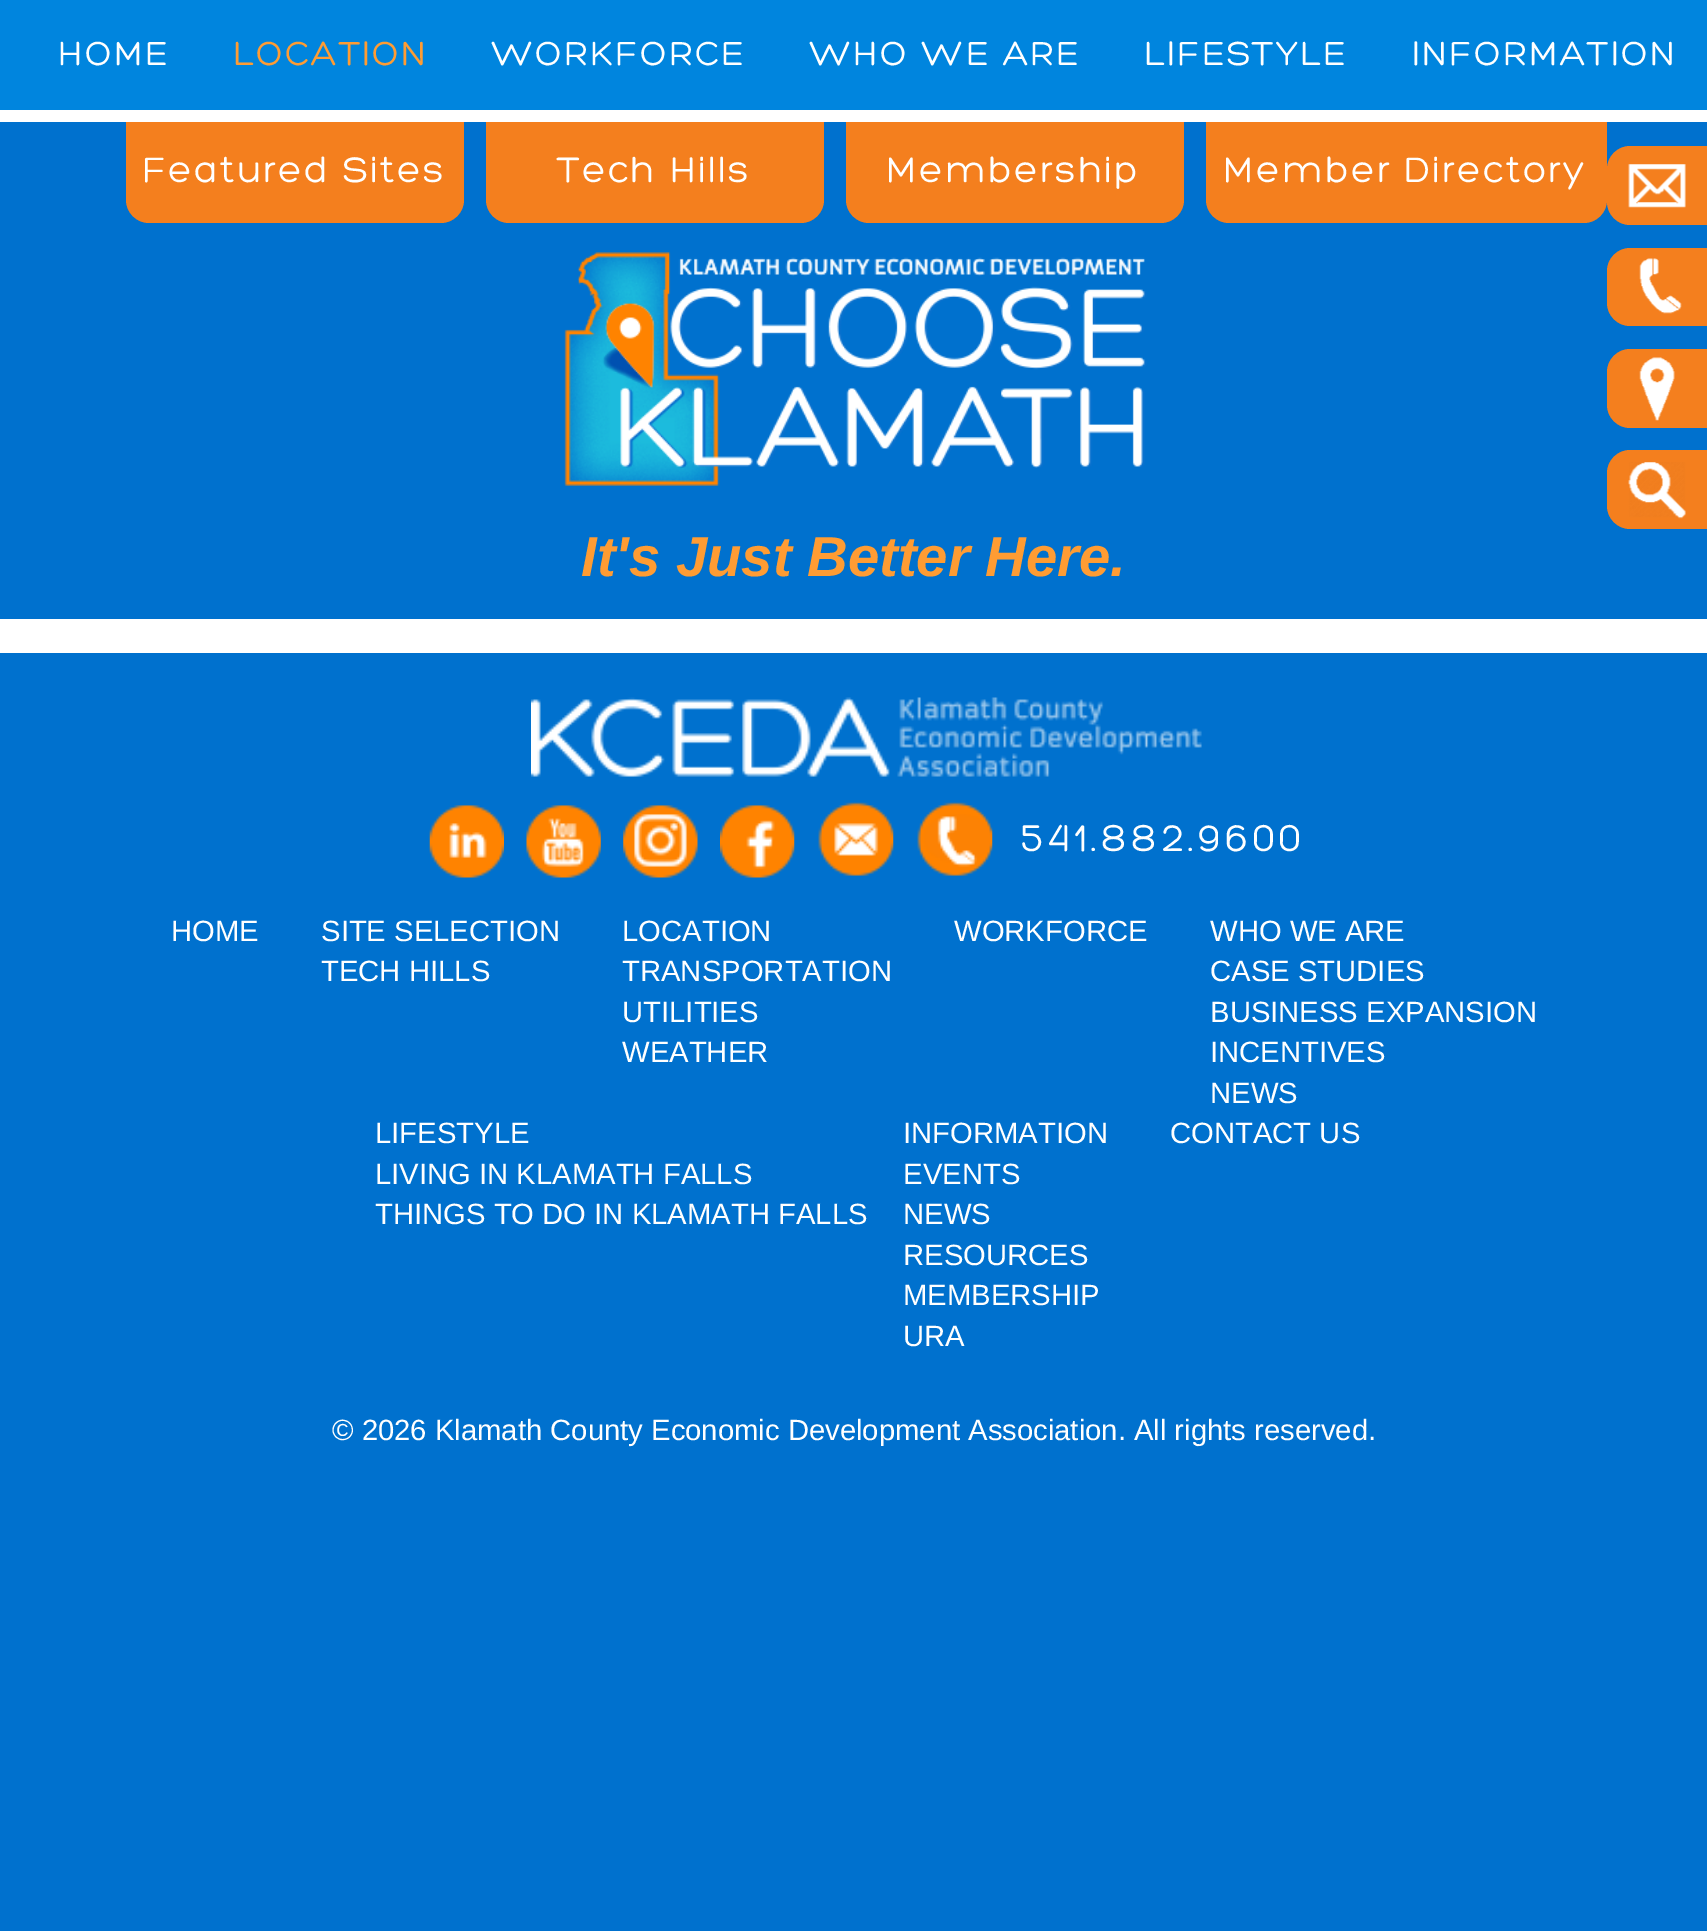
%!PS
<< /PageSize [1707 1931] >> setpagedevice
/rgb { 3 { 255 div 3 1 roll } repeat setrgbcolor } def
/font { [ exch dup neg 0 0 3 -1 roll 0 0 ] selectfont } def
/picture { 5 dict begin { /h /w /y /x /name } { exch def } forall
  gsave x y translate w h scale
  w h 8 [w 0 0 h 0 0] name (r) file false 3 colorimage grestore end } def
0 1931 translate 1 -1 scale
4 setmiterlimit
0 113 206 rgb
0 0 1707 1931 rectfill
[
  [0 110 1707 543 255 255 255]
  [0 0 1707 110 0 133 222]
  [0 122 1707 497 0 113 206]
] { aload pop rgb rectfill } forall
244 127 30 rgb
126 122 moveto 464 122 lineto 464 200 lineto 464 212.5 453.5 223 441 223 curveto 149 223 lineto 136.5 223 126 212.5 126 200 curveto closepath fill
486 122 moveto 824 122 lineto 824 200 lineto 824 212.5 813.5 223 801 223 curveto 509 223 lineto 496.5 223 486 212.5 486 200 curveto closepath fill
846 122 moveto 1184 122 lineto 1184 200 lineto 1184 212.5 1173.5 223 1161 223 curveto 869 223 lineto 856.5 223 846 212.5 846 200 curveto closepath fill
1206 122 moveto 1607 122 lineto 1607 200 lineto 1607 212.5 1596.5 223 1584 223 curveto 1229 223 lineto 1216.5 223 1206 212.5 1206 200 curveto closepath fill
(img/1.rgb) 564 252 583 234 picture
(img/2.rgb) 531 697 671 80 picture
(img/3.rgb) 429 805 75 73 picture
(img/4.rgb) 526 805 75 73 picture
(img/5.rgb) 623 805 75 73 picture
(img/6.rgb) 720 805 75 73 picture
(img/7.rgb) 818 802 76 74 picture
(img/8.rgb) 917 802 76 74 picture
1630 146 moveto 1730 146 lineto 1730 225 lineto 1630 225 lineto 1617.5 225 1607 214.5 1607 202 curveto 1607 169 lineto 1607 156.5 1617.5 146 1630 146 curveto closepath fill
(img/9.rgb) 1628 164 58 44 picture
1630 248 moveto 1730 248 lineto 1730 326 lineto 1630 326 lineto 1617.5 326 1607 315.5 1607 303 curveto 1607 271 lineto 1607 258.5 1617.5 248 1630 248 curveto closepath fill
(img/10.rgb) 1639 258 43 56 picture
1630 349 moveto 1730 349 lineto 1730 428 lineto 1630 428 lineto 1617.5 428 1607 417.5 1607 405 curveto 1607 372 lineto 1607 359.5 1617.5 349 1630 349 curveto closepath fill
(img/11.rgb) 1639 357 36 64 picture
1630 450 moveto 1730 450 lineto 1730 529 lineto 1630 529 lineto 1617.5 529 1607 518.5 1607 506 curveto 1607 473 lineto 1607 460.5 1617.5 450 1630 450 curveto closepath fill
(img/12.rgb) 1628 462 58 57 picture
/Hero-Regular 36 font
255 255 255 rgb
58 65 moveto 2.25 0 (HOME) ashow
255 156 51 rgb
233 65 moveto 2.25 0 (LOCATION) ashow
255 255 255 rgb
491 65 moveto 2.25 0 (WORKFORCE) ashow
809 65 moveto 2.25 0 (WHO WE ARE) ashow
1144 65 moveto 2.25 0 (LIFESTYLE) ashow
1412 65 moveto 2.25 0 (INFORMATION) ashow
/Hero-Regular 38.25 font
142 182 moveto 2.25 0 (Featured Sites) ashow
557 182 moveto 2.25 0 (Tech Hills) ashow
886 182 moveto 2.25 0 (Membership) ashow
1223 182 moveto 2.25 0 (Member Directory) ashow
/LiberationSans-BoldItalic 56.25 font
255 156 51 rgb
581 576 moveto (It's Just Better Here.) show
/Hero-Regular 40.5 font
255 255 255 rgb
1021 851 moveto 4.5 0 (541.882.9600) ashow
/LiberationSans-Regular 29.25 font
[
  [(HOME) 171 941]
  [(SITE SELECTION) 321 941]
  [(TECH HILLS) 321 981]
  [(LOCATION) 622 941]
  [(TRANSPORTATION) 622 981]
  [(UTILITIES) 622 1022]
  [(WEATHER) 622 1062]
  [(WORKFORCE) 954 941]
  [(WHO WE ARE) 1210 941]
  [(CASE STUDIES) 1210 981]
  [(BUSINESS EXPANSION) 1210 1022]
  [(INCENTIVES) 1210 1062]
  [(NEWS) 1210 1103]
  [(LIFESTYLE) 375 1143]
  [(LIVING IN KLAMATH FALLS) 375 1184]
  [(THINGS TO DO IN KLAMATH FALLS) 375 1224]
  [(INFORMATION) 903 1143]
  [(EVENTS) 903 1184]
  [(NEWS) 903 1224]
  [(RESOURCES) 903 1265]
  [(MEMBERSHIP) 903 1305]
  [(URA) 903 1346]
  [(CONTACT US) 1170 1143]
  [(© 2026 Klamath County Economic Development Association. All rights reserved.) 332 1440]
] { aload pop moveto show } forall
showpage
